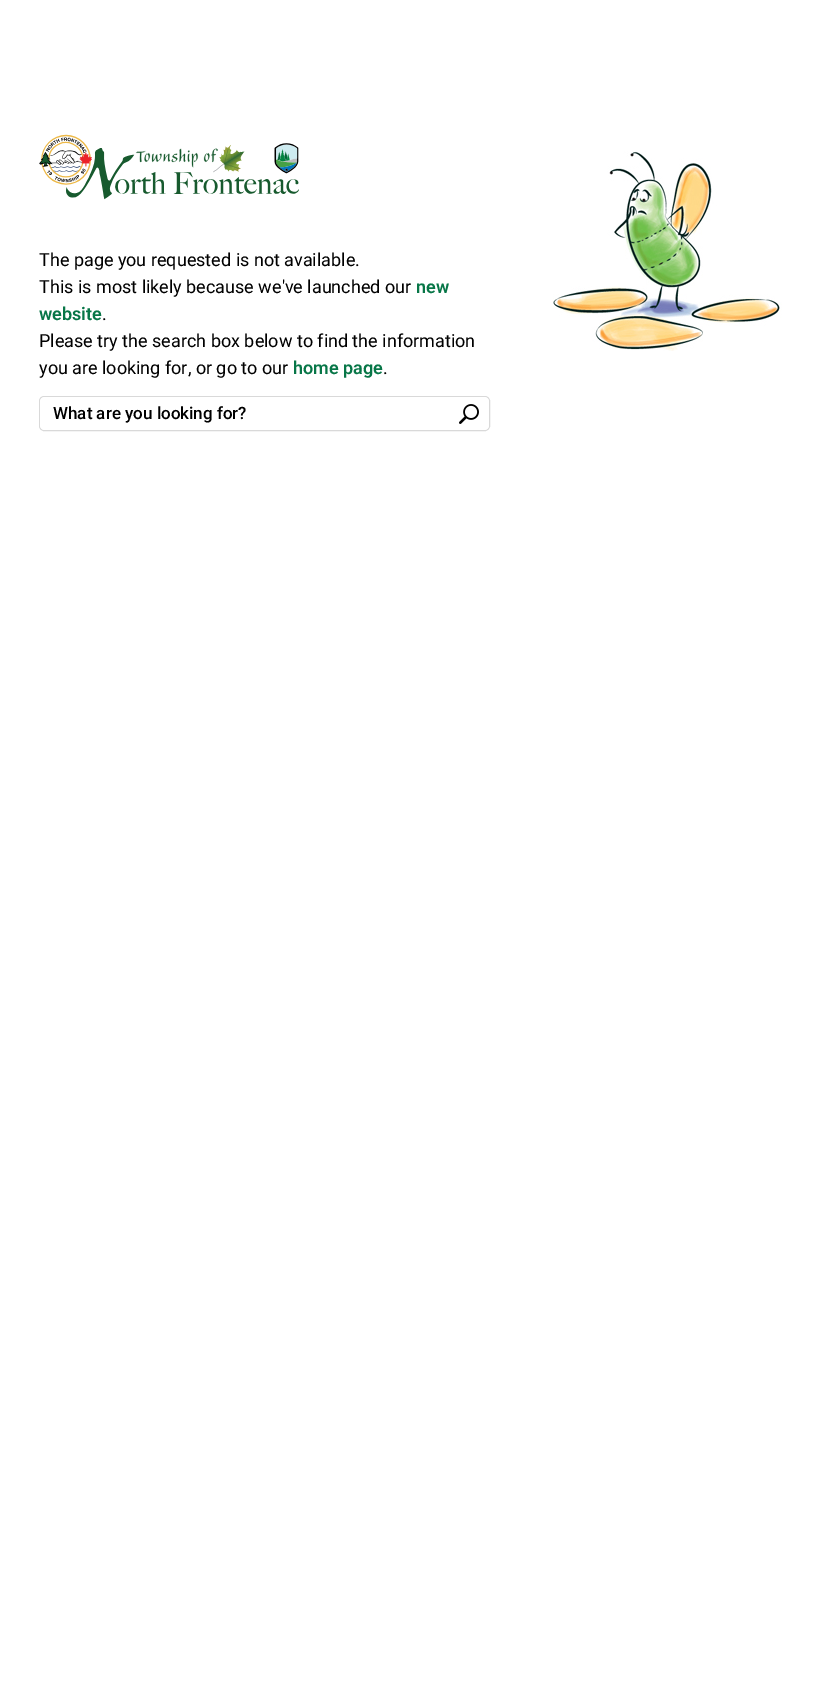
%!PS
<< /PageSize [814 1703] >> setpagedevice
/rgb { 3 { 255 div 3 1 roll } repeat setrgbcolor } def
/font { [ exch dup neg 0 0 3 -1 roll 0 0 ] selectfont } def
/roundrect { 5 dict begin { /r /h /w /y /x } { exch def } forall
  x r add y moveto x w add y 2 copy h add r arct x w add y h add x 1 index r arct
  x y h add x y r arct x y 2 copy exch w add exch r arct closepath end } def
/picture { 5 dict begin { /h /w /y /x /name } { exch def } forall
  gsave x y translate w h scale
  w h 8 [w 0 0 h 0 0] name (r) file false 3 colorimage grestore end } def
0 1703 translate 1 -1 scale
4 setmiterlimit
255 255 255 rgb
0 0 814 1703 rectfill
(img/1.rgb) 553 151 229 200 picture
(img/2.rgb) 39 134 260 66 picture
217 217 217 rgb
39.5 396.5 450 34 4.5 roundrect stroke
255 255 255 rgb
45 397 moveto 449 397 lineto 449 430 lineto 45 430 lineto 42 430 40 428 40 425 curveto 40 402 lineto 40 399 42 397 45 397 curveto closepath fill
449 397 moveto 484 397 lineto 487 397 489 399 489 402 curveto 489 425 lineto 489 428 487 430 484 430 curveto 449 430 lineto closepath fill
(img/3.rgb) 459 404 20 20 picture
/Roboto-Regular 18 font
0 0 0 rgb
39 266 moveto (The page you requested is not available.) show
39 293 moveto (This is most likely because we've launched our) show
/Roboto-SemiBold 18 font
7 118 71 rgb
416 293 moveto (new) show
39 320 moveto (website) show
/Roboto-Regular 18 font
0 0 0 rgb
[
  [(.) 102 320]
  [(Please try the search box below to find the information) 39 347]
  [(you are looking for, or go to our) 39 374]
] { aload pop moveto show } forall
/Roboto-SemiBold 18 font
7 118 71 rgb
293 374 moveto (home page) show
/Roboto-Regular 18 font
0 0 0 rgb
383 374 moveto (.) show
/Roboto-Medium 17 font
53 419 moveto (What are you looking for?) show
showpage
